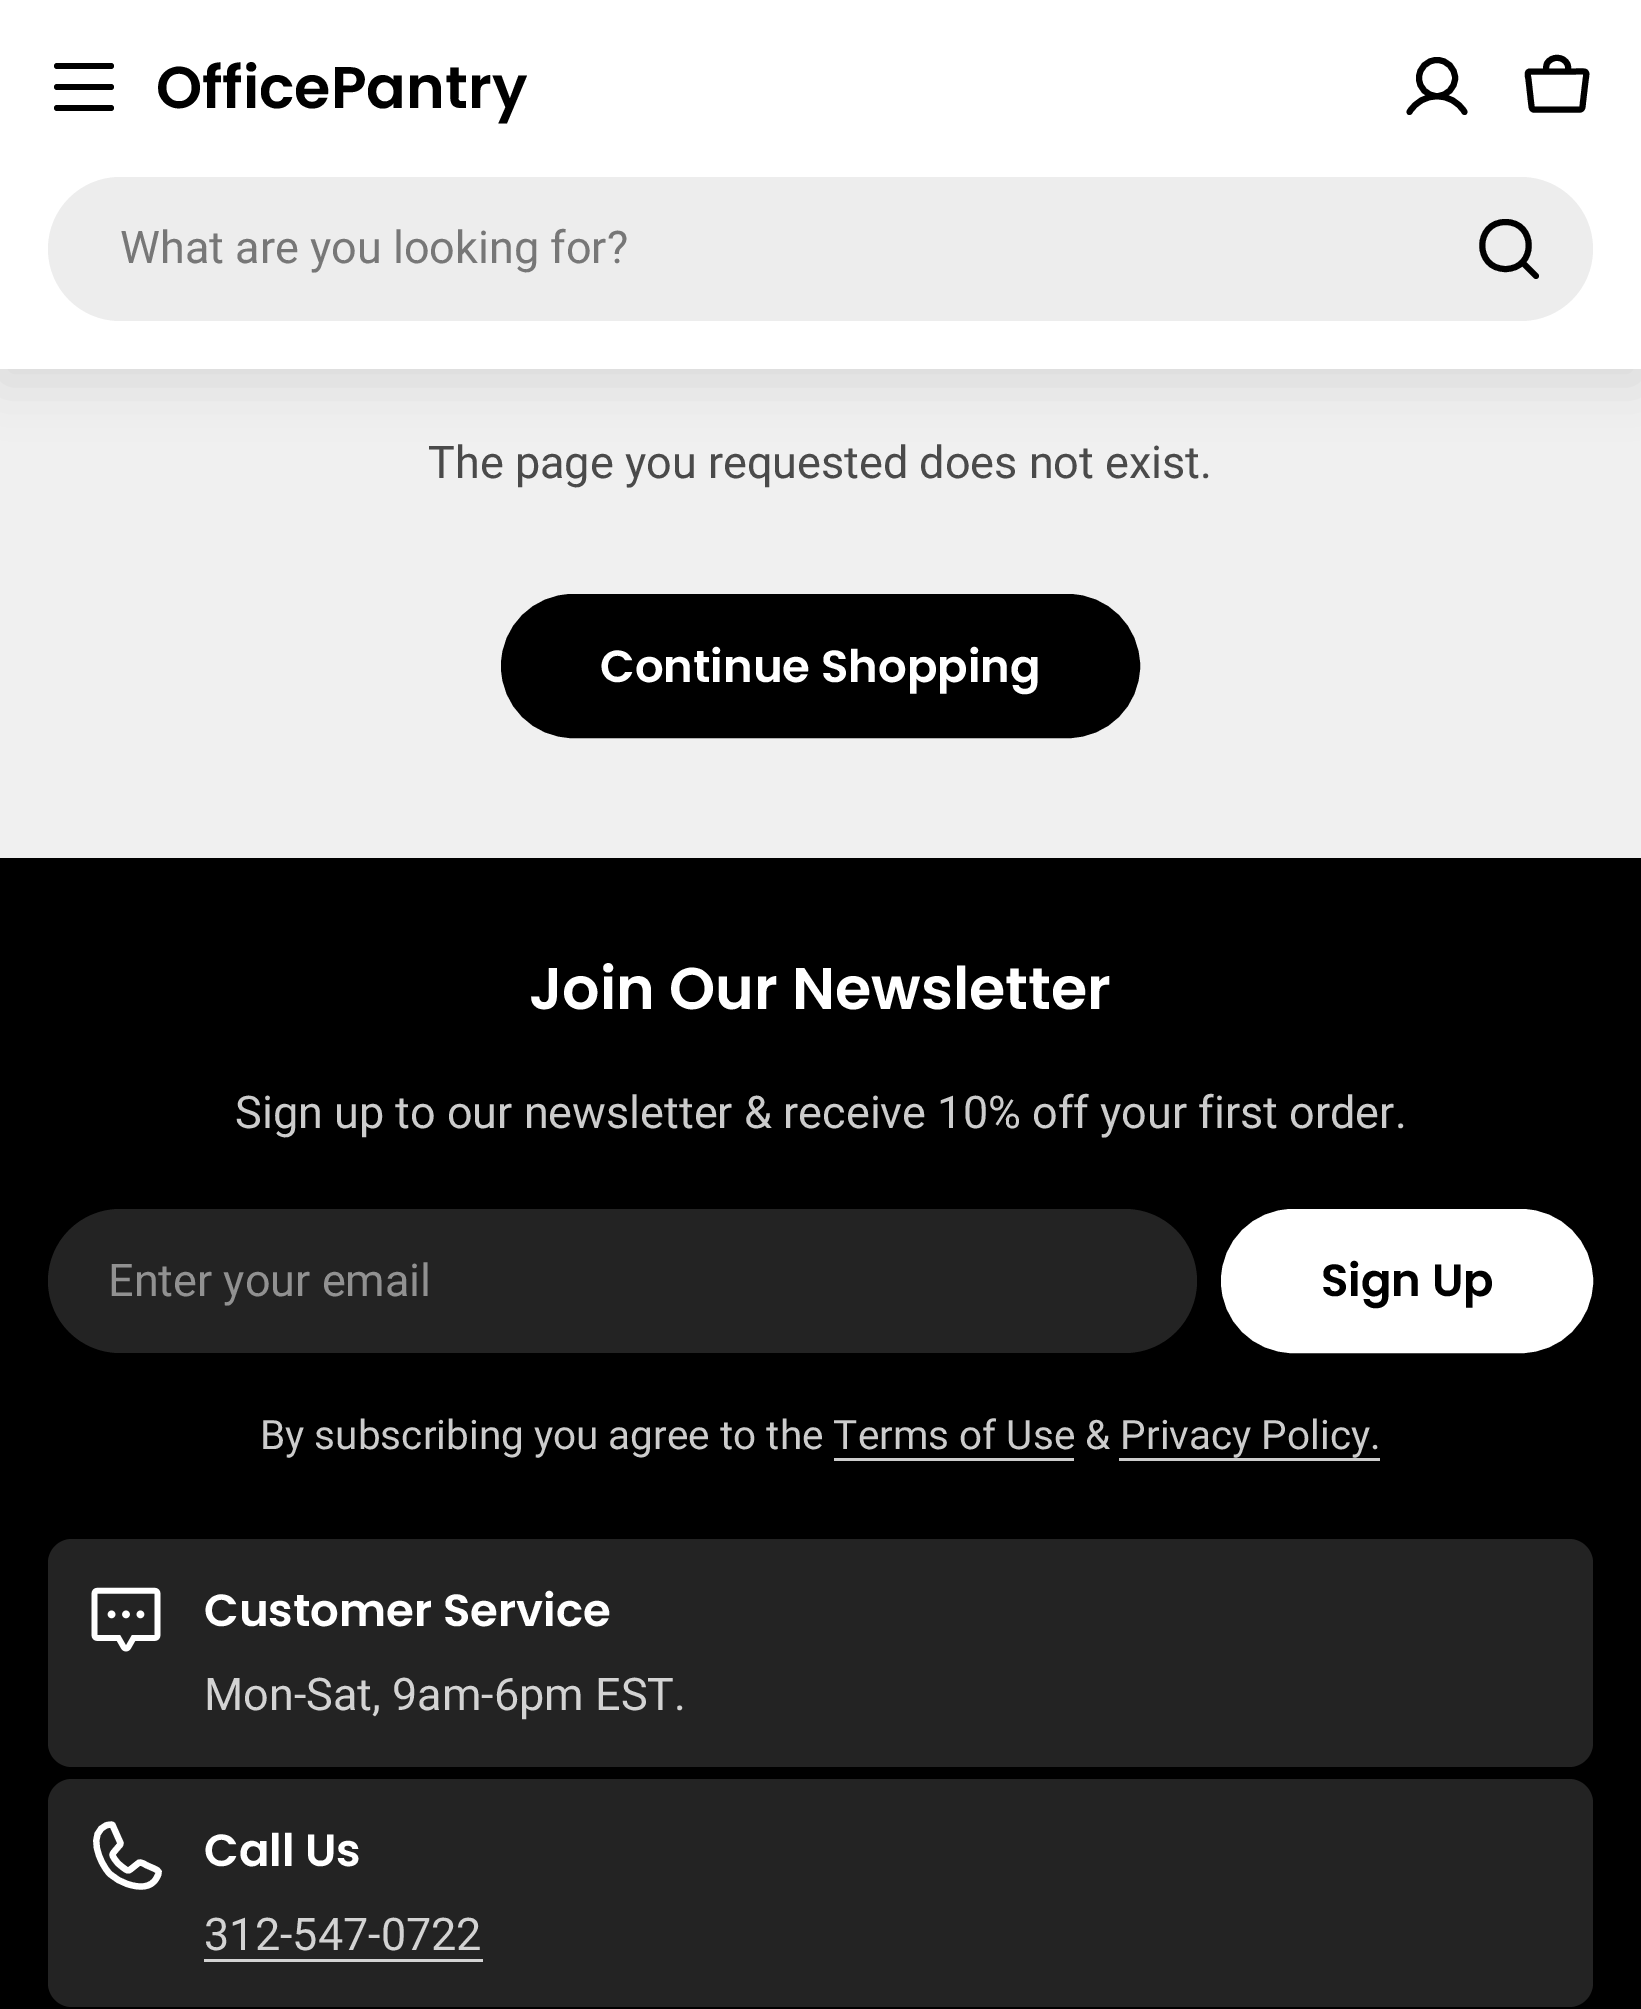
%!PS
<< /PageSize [1641 2009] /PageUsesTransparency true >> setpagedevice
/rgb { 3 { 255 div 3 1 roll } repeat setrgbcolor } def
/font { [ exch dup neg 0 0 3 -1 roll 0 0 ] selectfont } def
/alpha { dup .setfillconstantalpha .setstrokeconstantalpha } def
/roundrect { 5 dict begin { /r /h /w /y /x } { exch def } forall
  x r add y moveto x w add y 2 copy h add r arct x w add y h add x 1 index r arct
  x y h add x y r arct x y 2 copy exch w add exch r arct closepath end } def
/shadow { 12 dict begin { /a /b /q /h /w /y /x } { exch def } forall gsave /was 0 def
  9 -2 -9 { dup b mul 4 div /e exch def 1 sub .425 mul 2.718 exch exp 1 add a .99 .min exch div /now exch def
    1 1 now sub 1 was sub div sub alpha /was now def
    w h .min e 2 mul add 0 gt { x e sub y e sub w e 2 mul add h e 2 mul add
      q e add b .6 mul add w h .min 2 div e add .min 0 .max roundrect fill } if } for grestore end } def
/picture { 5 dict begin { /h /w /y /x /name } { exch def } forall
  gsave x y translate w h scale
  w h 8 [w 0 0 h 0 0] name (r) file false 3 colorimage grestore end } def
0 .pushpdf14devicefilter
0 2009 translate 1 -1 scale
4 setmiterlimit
240 240 240 rgb
0 0 1641 2009 rectfill
0 0 0 rgb
0 12 1641 369 0 27 0.1 shadow
255 255 255 rgb
0 0 1641 369 rectfill
0 0 0 rgb
54 84 60 6 3 roundrect fill
54 63 60 6 3 roundrect fill
54 105 60 6 3 roundrect fill
6 setlinewidth
1 setlinecap
1 setlinejoin
1437 96 moveto 1447 96 1455 88 1455 78 curveto 1455 68 1447 60 1437 60 curveto 1427 60 1419 68 1419 78 curveto 1419 88 1427 96 1437 96 curveto closepath 1409.5 112 moveto 1422 91 1452 91 1464.5 112 curveto stroke
1580 109.5 moveto 1541.5 109.5 lineto 1531.5 109.5 1532 111.5 1531 102 curveto 1528.5 79.5 lineto 1528.5 78 1526 71.5 1530 71.5 curveto 1575 71.5 lineto 1589.5 71.5 1586.5 69.5 1585 85 curveto 1583 102 lineto 1582.5 103 1583.5 109.5 1580 109.5 curveto closepath stroke
1546 71 moveto 1546 68.5 1546 66 1547 63.5 curveto 1551.5 55.5 1564 56 1567.5 64.5 curveto 1568.5 67 1568 69 1568 71 curveto stroke
237 237 237 rgb
48 177 1545 144 72 roundrect fill
0 0 0 rgb
1505.5 269 moveto 1536.5 269 1536.5 222 1505.5 222 curveto 1474.5 222 1474.5 269 1505.5 269 curveto closepath 1522.5 262.5 moveto 1536 276 lineto stroke
502.5 595.5 636 141 70.5 roundrect gsave fill grestore
3 setlinewidth
0 setlinecap
0 setlinejoin
stroke
0 858 1641 1151 rectfill
35 35 35 rgb
48 1209 1149 144 72 roundrect fill
255 255 255 rgb
1222.5 1210.5 369 141 70.5 roundrect gsave fill grestore
stroke
204 204 204 rgb
834 1458 240 3 rectfill
1119 1458 261 3 rectfill
35 35 35 rgb
48 1539 1545 228 24 roundrect fill
(img/1.rgb) 91 1587 70 65 picture
48 1779 1545 228 24 roundrect fill
255 255 255 rgb
6.2 setlinewidth
138.5 1863 moveto 140.5 1861.5 144.5 1864 146 1865 curveto 154 1868.5 lineto 159.5 1871 160 1872 156.5 1878 curveto 151 1888.5 138.5 1887.5 129 1884.5 curveto 121.5 1882.5 115 1878.5 109.5 1873.5 curveto 99.5 1863 86.5 1832 107.5 1825 curveto 109 1825 111 1824 112.5 1825 curveto 120.5 1843 lineto 120.5 1844.5 120 1845 119 1846 curveto 114 1852 lineto 112 1854.5 112 1855 114 1858 curveto 116 1862 119.5 1865 123 1867.5 curveto 127 1870.5 128 1871.5 131 1869 curveto closepath stroke
211 211 211 rgb
204 1959 279 3 rectfill
/Poppins-SemiBold 58.75 font
0 0 0 rgb
156 108 moveto (OfficePantry) show
/Roboto-Regular 45 font
119 119 119 rgb
120 263 moveto (What are you looking for?) show
74 74 74 rgb
428 478 moveto (The page you requested does not exist.) show
/Poppins-SemiBold 45 font
255 255 255 rgb
600 682 moveto (Continue Shopping) show
/Poppins-SemiBold 58.75 font
529 1009 moveto (Join Our Newsletter) show
/Roboto-Regular 45 font
204 204 204 rgb
235 1128 moveto (Sign up to our newsletter & receive 10% off your first order.) show
145 145 145 rgb
108 1296 moveto (Enter your email) show
/Poppins-SemiBold 45 font
0 0 0 rgb
1321 1296 moveto (Sign Up) show
/Roboto-Regular 40.5 font
204 204 204 rgb
260 1449 moveto (By subscribing you agree to the Terms of Use & Privacy Policy.) show
/Poppins-SemiBold 45 font
255 255 255 rgb
204 1626 moveto (Customer Service) show
/Roboto-Regular 45 font
211 211 211 rgb
204 1710 moveto (Mon-Sat, 9am-6pm EST.) show
/Poppins-SemiBold 45 font
255 255 255 rgb
204 1866 moveto (Call Us) show
/Roboto-Regular 45 font
211 211 211 rgb
204 1950 moveto (312-547-0722) show
.poppdf14devicefilter showpage
